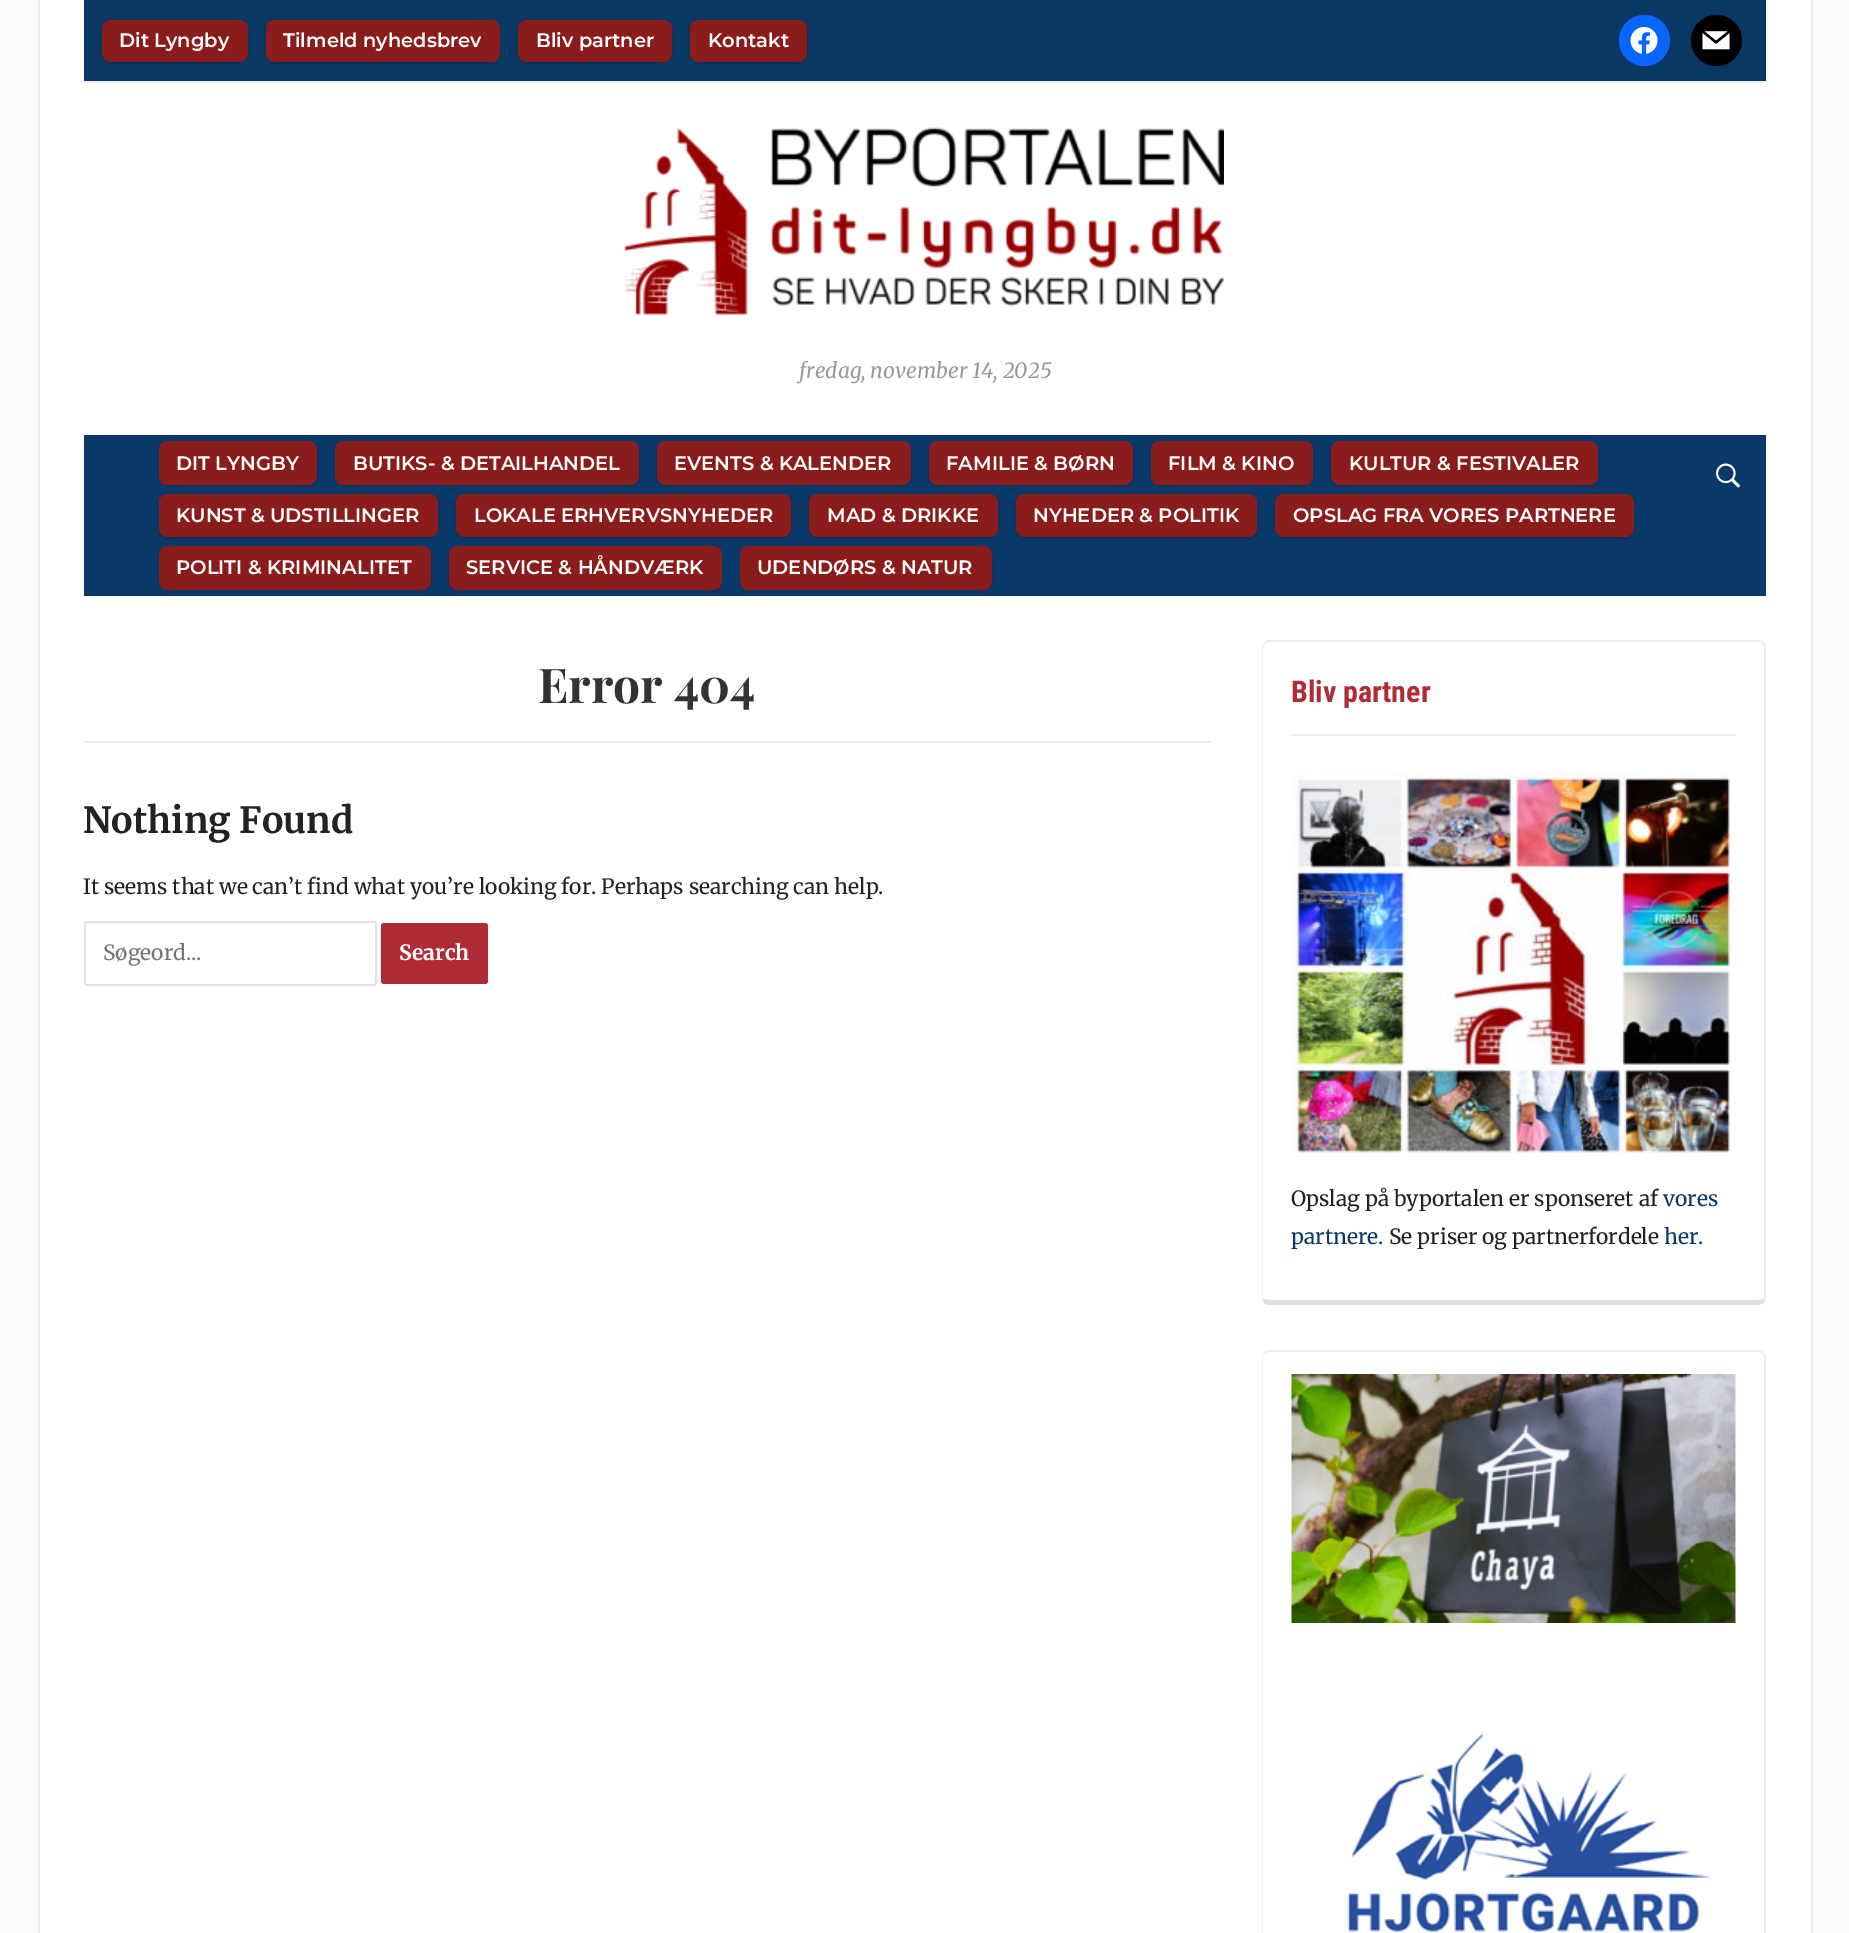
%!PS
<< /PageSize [1849 1933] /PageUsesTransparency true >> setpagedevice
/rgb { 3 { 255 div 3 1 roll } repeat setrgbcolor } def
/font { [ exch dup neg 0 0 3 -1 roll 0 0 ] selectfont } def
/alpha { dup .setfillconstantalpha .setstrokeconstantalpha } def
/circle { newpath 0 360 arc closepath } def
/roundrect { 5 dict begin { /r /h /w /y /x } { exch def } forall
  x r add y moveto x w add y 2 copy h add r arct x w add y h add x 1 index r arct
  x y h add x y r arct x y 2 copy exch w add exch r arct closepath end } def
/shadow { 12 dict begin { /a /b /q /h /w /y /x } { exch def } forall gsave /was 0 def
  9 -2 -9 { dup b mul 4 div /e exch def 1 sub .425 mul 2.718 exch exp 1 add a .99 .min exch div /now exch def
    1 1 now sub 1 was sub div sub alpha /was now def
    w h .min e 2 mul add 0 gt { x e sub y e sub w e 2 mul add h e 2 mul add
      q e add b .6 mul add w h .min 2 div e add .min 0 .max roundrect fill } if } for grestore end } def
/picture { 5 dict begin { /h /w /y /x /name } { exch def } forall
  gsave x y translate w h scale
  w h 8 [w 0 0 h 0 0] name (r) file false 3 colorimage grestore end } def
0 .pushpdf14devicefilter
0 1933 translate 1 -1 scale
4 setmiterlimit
251 251 251 rgb
0 0 1849 1933 rectfill
[
  [40 0 1771 1933 255 255 255]
  [1811 0 2 1933 238 238 238]
  [38 0 2 1933 238 238 238]
  [84 0 1682 81 10 56 100]
  [84 81 1682 2 238 238 238]
] { aload pop rgb rectfill } forall
0 0 0 rgb
102 21 146 42 9 2 0.2 shadow
139 28 28 rgb
102 20 146 42 9 roundrect fill
0 0 0 rgb
266 21 234 42 9 2 0.2 shadow
139 28 28 rgb
266 20 234 42 9 roundrect fill
0 0 0 rgb
518 21 154 42 9 2 0.2 shadow
139 28 28 rgb
518 20 154 42 9 roundrect fill
0 0 0 rgb
690 21 117 42 9 2 0.2 shadow
139 28 28 rgb
690 20 117 42 9 roundrect fill
8 102 255 rgb
1644.5 40.5 25.5 circle fill
(img/1.rgb) 1630 27 28 27 picture
0 0 0 rgb
1716.5 40.5 25.5 circle fill
(img/2.rgb) 1702 31 28 19 picture
(img/3.rgb) 624 127 600 188 picture
9 57 105 rgb
84 435 1682 161 rectfill
0 0 0 rgb
159 443 158 43 9 2 0.2 shadow
139 28 28 rgb
159 441 158 44 9 roundrect fill
0 0 0 rgb
335 443 304 43 9 2 0.2 shadow
139 28 28 rgb
335 441 304 44 9 roundrect fill
0 0 0 rgb
657 443 254 43 9 2 0.2 shadow
139 28 28 rgb
657 441 254 44 9 roundrect fill
0 0 0 rgb
929 443 204 43 9 2 0.2 shadow
139 28 28 rgb
929 441 204 44 9 roundrect fill
0 0 0 rgb
1151 443 162 43 9 2 0.2 shadow
139 28 28 rgb
1151 441 162 44 9 roundrect fill
0 0 0 rgb
1331 443 267 43 9 2 0.2 shadow
139 28 28 rgb
1331 441 267 44 9 roundrect fill
0 0 0 rgb
159 495 279 44 9 2 0.2 shadow
139 28 28 rgb
159 494 279 43 9 roundrect fill
0 0 0 rgb
456 495 335 44 9 2 0.2 shadow
139 28 28 rgb
456 494 335 43 9 roundrect fill
0 0 0 rgb
809 495 189 44 9 2 0.2 shadow
139 28 28 rgb
809 494 189 43 9 roundrect fill
0 0 0 rgb
1016 495 241 44 9 2 0.2 shadow
139 28 28 rgb
1016 494 241 43 9 roundrect fill
0 0 0 rgb
1275 495 359 44 9 2 0.2 shadow
139 28 28 rgb
1275 494 359 43 9 roundrect fill
0 0 0 rgb
159 548 272 43 9 2 0.2 shadow
139 28 28 rgb
159 546 272 44 9 roundrect fill
0 0 0 rgb
449 548 273 43 9 2 0.2 shadow
139 28 28 rgb
449 546 273 44 9 roundrect fill
0 0 0 rgb
740 548 252 43 9 2 0.2 shadow
139 28 28 rgb
740 546 252 44 9 roundrect fill
(img/4.rgb) 1716 463 24 25 picture
238 238 238 rgb
84 741 1127 2 rectfill
226 226 226 rgb
2 setlinewidth
85 922 291 63 2 roundrect stroke
176 43 51 rgb
381 923 107 61 3 roundrect fill
238 238 238 rgb
1269 642 moveto 1268 642 1266 643 1265 644 curveto 1264 643 lineto 1267 640 lineto 1761 640 lineto 1764 642 lineto 1762 644 lineto 1761 643 1760 642 1758 642 curveto closepath fill
1766 1300 moveto 1765 1302 lineto 1763 1299 lineto 1764 1298 lineto 1764 648 lineto 1764 646 1763 645 1762 644 curveto 1764 642 lineto 1766 645 lineto closepath fill
223 224 224 rgb
1269 1305 moveto 1758 1305 lineto 1760 1305 1763 1304 1765 1302 curveto 1763 1299 lineto 1758 1300 lineto 1269 1300 lineto 1264 1299 lineto 1263 1301 lineto 1264 1304 1266 1305 1269 1305 curveto closepath fill
238 238 238 rgb
1263 1301 moveto 1262 1298 lineto 1262 648 lineto 1262 646 1263 644 1264 643 curveto 1265 644 lineto 1264 645 1263 646 1263 648 curveto 1263 1298 lineto 1264 1299 lineto closepath fill
1292 734 444 2 rectfill
(img/5.rgb) 1291 772 439 381 picture
1269 1350 moveto 1267 1350 1265 1351 1264 1352 curveto 1265 1353 lineto 1266 1352 1268 1352 1269 1352 curveto 1758 1352 lineto 1759 1352 1761 1352 1762 1353 curveto 1763 1352 lineto 1762 1351 1760 1350 1758 1350 curveto closepath fill
1766 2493 moveto 1764 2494 lineto 1763 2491 lineto 1764 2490 lineto 1764 1358 lineto 1764 1356 1763 1355 1762 1353 curveto 1763 1352 lineto 1766 1355 lineto closepath fill
1264 1352 moveto 1263 1354 1262 1356 1262 1358 curveto 1262 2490 lineto 1263 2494 lineto 1264 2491 lineto 1263 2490 lineto 1263 1358 lineto 1263 1356 1264 1355 1265 1353 curveto closepath fill
(img/6.rgb) 1291 1374 445 249 picture
(img/7.rgb) 1347 1733 364 200 picture
/Montserrat-SemiBold 19.5 font
255 255 255 rgb
[
  [(Dit Lyngby) 119 47]
  [(Tilmeld nyhedsbrev) 283 47]
  [(Bliv partner) 536 47]
  [(Kontakt) 708 47]
] { aload pop moveto show } forall
/Merriweather-Italic 21 font
153 153 153 rgb
799 378 moveto (fredag, november 14, 2025) show
/Montserrat-SemiBold 19.5 font
255 255 255 rgb
[
  [(DIT LYNGBY) 176 470]
  [(BUTIKS- & DETAILHANDEL) 353 470]
  [(EVENTS & KALENDER) 674 470]
  [(FAMILIE & BØRN) 946 470]
  [(FILM & KINO) 1168 470]
  [(KULTUR & FESTIVALER) 1349 470]
  [(KUNST & UDSTILLINGER) 176 522]
  [(LOKALE ERHVERVSNYHEDER) 474 522]
  [(MAD & DRIKKE) 827 522]
  [(NYHEDER & POLITIK) 1033 522]
  [(OPSLAG FRA VORES PARTNERE) 1293 522]
  [(POLITI & KRIMINALITET) 176 574]
  [(SERVICE & HÅNDVÆRK) 466 574]
  [(UDENDØRS & NATUR) 757 574]
] { aload pop moveto show } forall
/PlayfairDisplay-Bold 48 font
51 51 51 rgb
538 703 moveto (Error 404) show
/Merriweather-Bold 36 font
34 34 34 rgb
83 833 moveto (Nothing Found) show
/Merriweather-Regular 21 font
83 894 moveto (It seems that we can’t find what you’re looking for. Perhaps searching can help.) show
117 117 117 rgb
103 960 moveto (Søgeord...) show
/Merriweather-Bold 21 font
255 255 255 rgb
399 960 moveto (Search) show
/RobotoCondensed-Bold 30 font
176 43 51 rgb
1291 702 moveto (Bliv partner) show
/Merriweather-Regular 21 font
34 34 34 rgb
1291 1206 moveto (Opslag på byportalen er sponseret af) show
9 57 105 rgb
1663 1206 moveto (vores) show
1291 1244 moveto (partnere.) show
34 34 34 rgb
1389 1244 moveto (Se priser og partnerfordele) show
9 57 105 rgb
1664 1244 moveto (her.) show
.poppdf14devicefilter showpage
